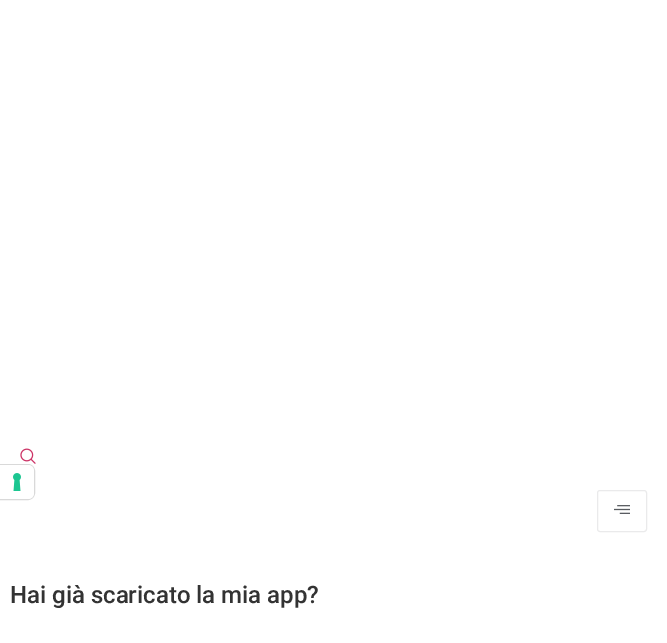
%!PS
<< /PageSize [667 643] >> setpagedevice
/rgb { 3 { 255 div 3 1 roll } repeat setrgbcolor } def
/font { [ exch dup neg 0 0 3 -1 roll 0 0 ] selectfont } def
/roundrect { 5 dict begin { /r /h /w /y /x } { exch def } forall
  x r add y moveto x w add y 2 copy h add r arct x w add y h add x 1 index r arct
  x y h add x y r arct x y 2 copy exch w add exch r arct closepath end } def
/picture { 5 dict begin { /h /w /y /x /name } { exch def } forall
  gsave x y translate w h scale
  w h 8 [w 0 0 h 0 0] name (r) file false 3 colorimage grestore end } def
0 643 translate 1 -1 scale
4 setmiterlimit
255 255 255 rgb
0 0 667 643 rectfill
217 217 217 rgb
-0.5 464.5 moveto 28 464.5 lineto 31.5 464.5 34.5 467.5 34.5 471 curveto 34.5 493 lineto 34.5 496.5 31.5 499.5 28 499.5 curveto -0.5 499.5 lineto closepath stroke
255 255 255 rgb
0 465 moveto 28 465 lineto 31.5 465 34 467.5 34 471 curveto 34 493 lineto 34 496.5 31.5 499 28 499 curveto 0 499 lineto closepath fill
(img/1.rgb) 13 473 8 18 picture
(img/2.rgb) 20 448 16 16 picture
234 234 235 rgb
597.5 490.5 49 41 2.5 roundrect stroke
(img/3.rgb) 614 505 16 9 picture
/Roboto-Medium 24 font
51 51 51 rgb
10 603 moveto (Hai già scaricato la mia app?) show
showpage
